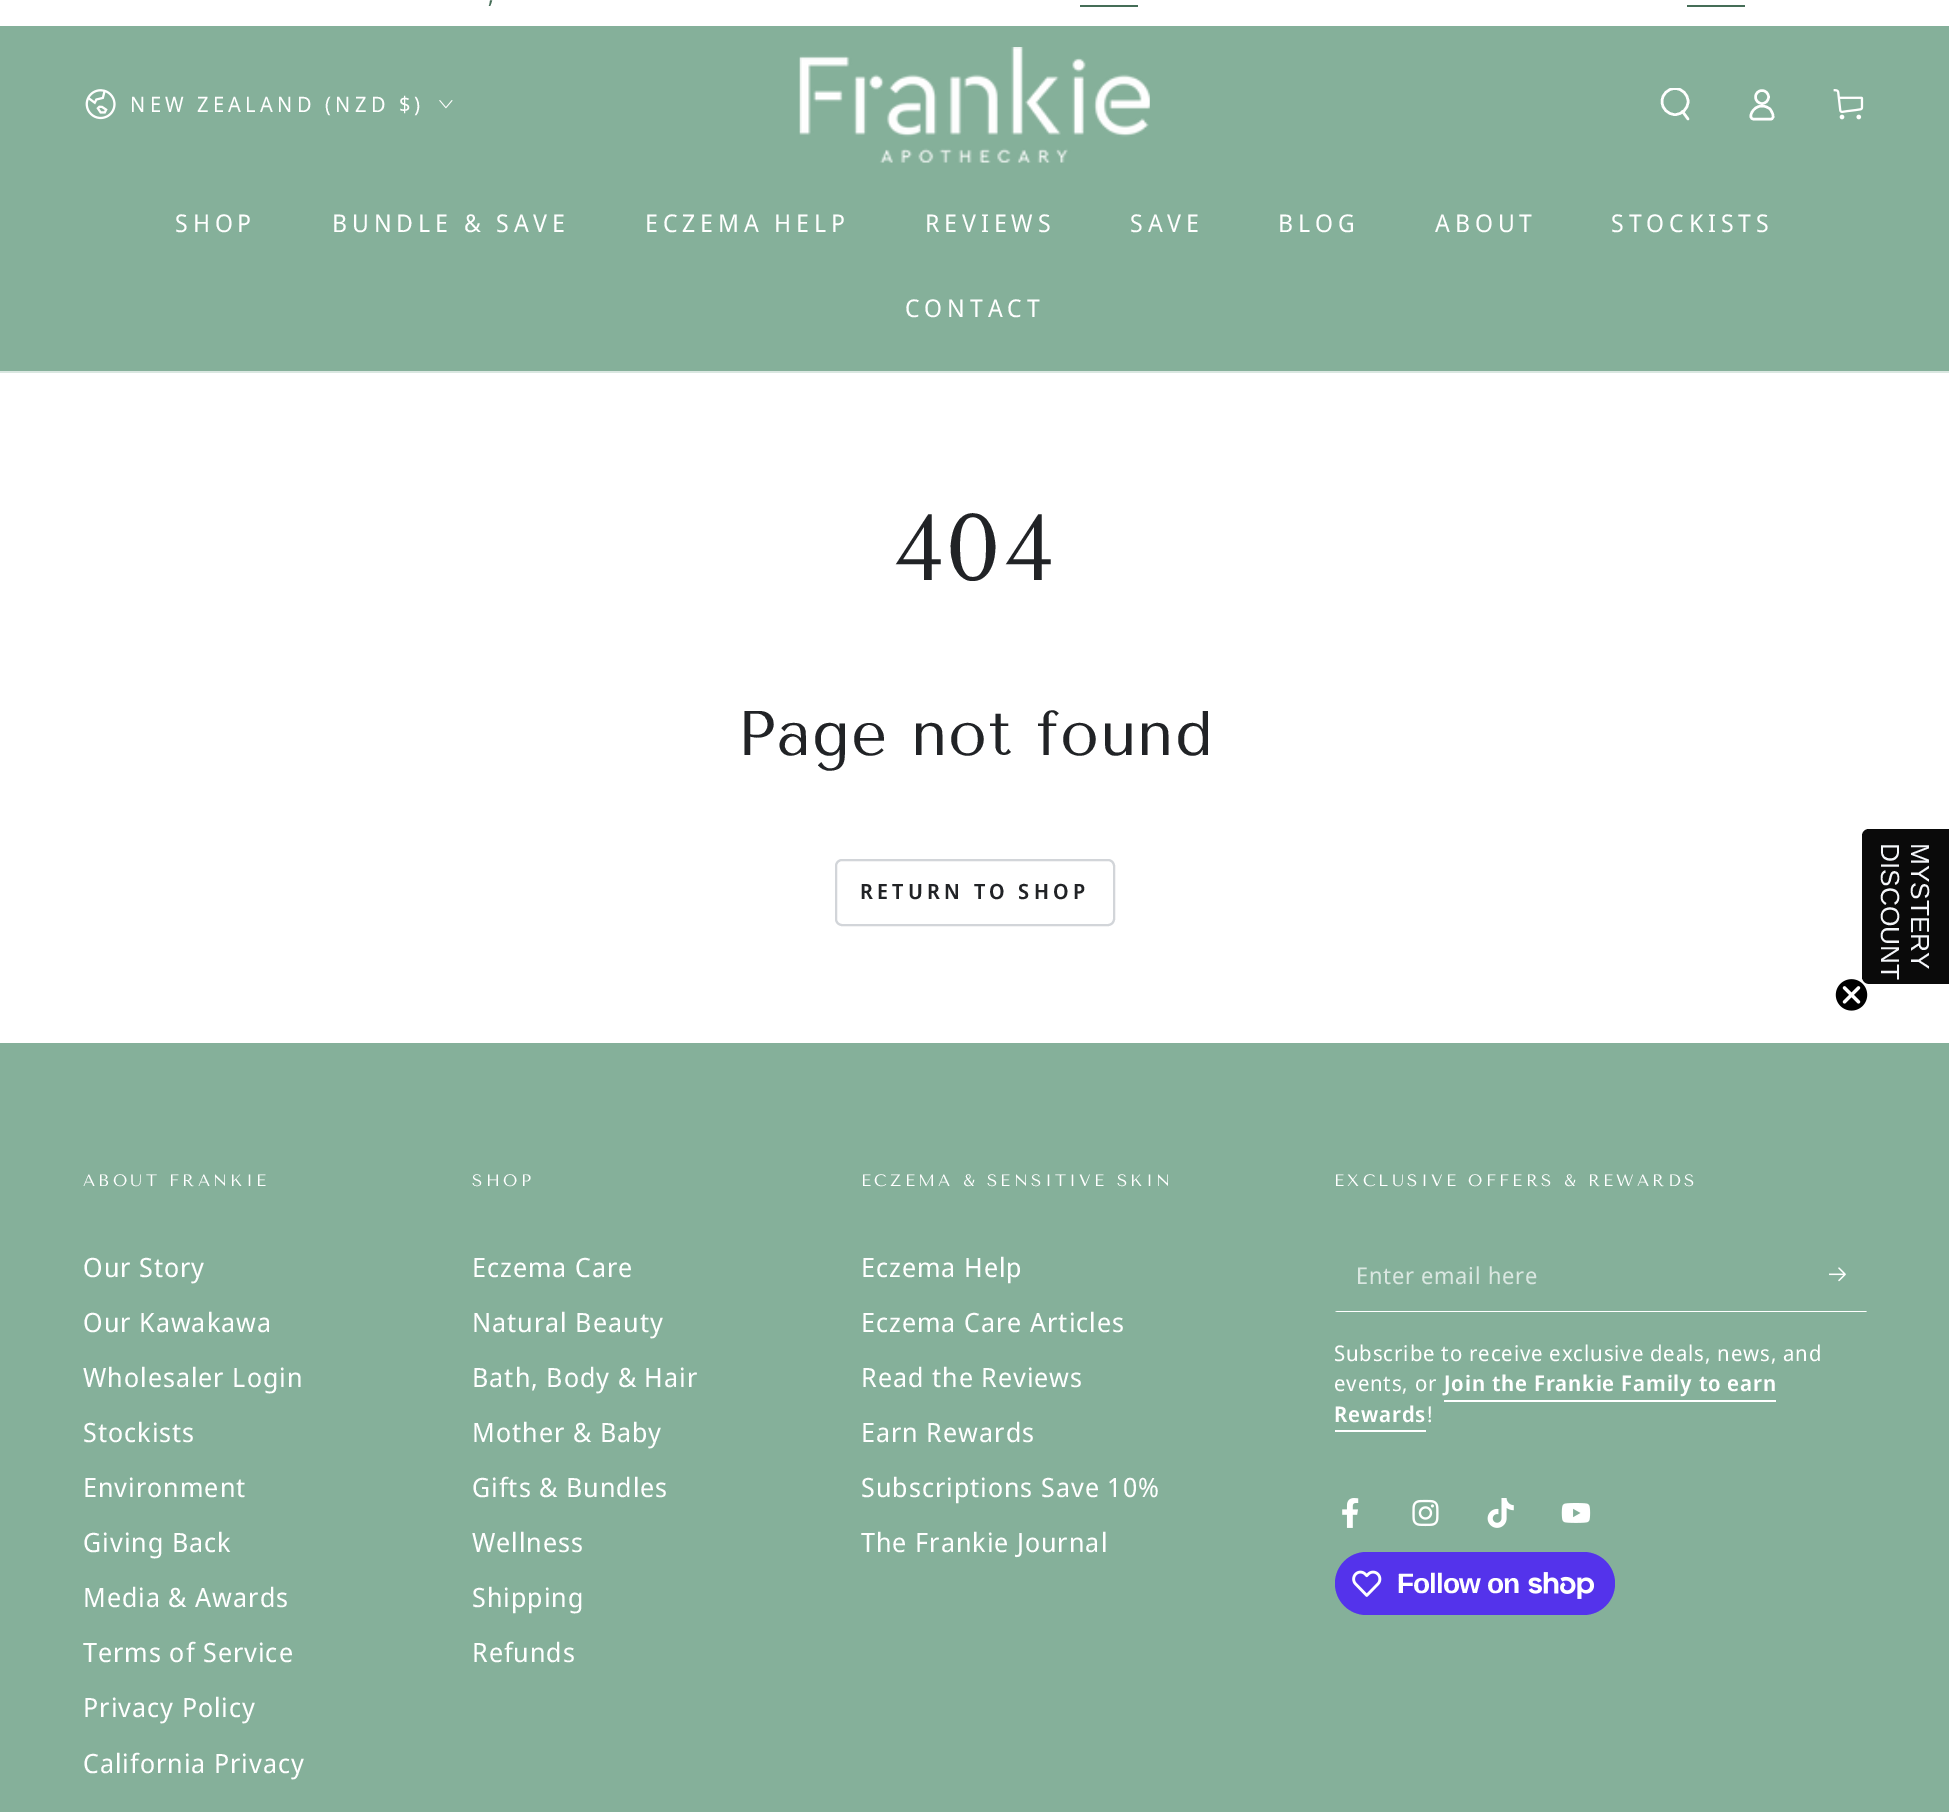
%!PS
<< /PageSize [1949 1812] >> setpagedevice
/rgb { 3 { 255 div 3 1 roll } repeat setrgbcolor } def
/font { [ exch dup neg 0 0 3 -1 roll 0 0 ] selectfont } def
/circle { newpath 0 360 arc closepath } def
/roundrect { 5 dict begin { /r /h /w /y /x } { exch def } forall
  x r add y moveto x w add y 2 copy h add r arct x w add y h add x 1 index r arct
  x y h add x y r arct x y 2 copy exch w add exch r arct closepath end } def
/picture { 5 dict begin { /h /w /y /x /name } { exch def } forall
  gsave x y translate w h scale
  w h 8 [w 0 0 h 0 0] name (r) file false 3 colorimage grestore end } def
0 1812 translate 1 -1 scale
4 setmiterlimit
255 255 255 rgb
0 0 1949 1812 rectfill
69 109 87 rgb
1080 5 58 2 rectfill
1687 5 58 2 rectfill
218 231 225 rgb
0 371 moveto 0 373 lineto 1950 373 lineto 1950 28 lineto 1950 371 lineto closepath fill
133 176 154 rgb
0 26 1949 345 rectfill
(img/1.rgb) 85 89 31 31 picture
(img/2.rgb) 439 100 14 9 picture
(img/3.rgb) 799 47 351 116 picture
gsave
1659 88 33 33 rectclip
255 255 255 rgb
2.5 setlinewidth
1675 101.5 13 circle stroke
grestore
255 255 255 rgb
2.5 setlinewidth
1 setlinecap
1682.5 111.5 moveto 1688 119 lineto stroke
2.4 setlinewidth
0 setlinecap
1762 106 moveto 1752 106 1747.5 119 1753.5 119 curveto 1771.5 119 lineto 1775.5 117.5 1771.5 111 1770 109 curveto 1767.5 107 1765 106 1762 106 curveto closepath stroke
1762 97 6.5 circle stroke
(img/4.rgb) 1833 89 31 31 picture
210 213 217 rgb
2 setlinewidth
836 860 278 65 6 roundrect stroke
133 176 154 rgb
0 1043 1949 769 rectfill
255 255 255 rgb
1867 1312 moveto 1335 1312 lineto 1337 1311 lineto 1866 1311 lineto closepath fill
(img/5.rgb) 1829 1267 17 15 picture
1444 1400 332 2 rectfill
1335 1430 91 2 rectfill
(img/6.rgb) 1342 1498 17 30 picture
(img/7.rgb) 1412 1499 27 28 picture
(img/8.rgb) 1487 1498 27 30 picture
(img/9.rgb) 1561 1503 30 20 picture
84 51 235 rgb
1335 1552 280 63 31.5 roundrect fill
(img/10.rgb) 1352 1570 30 27 picture
(img/11.rgb) 1528 1572 66 27 picture
10 10 10 rgb
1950 829 moveto 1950 984 lineto 1869 984 lineto 1865 984 1862 981 1862 977 curveto 1862 836 lineto 1862 832 1865 829 1869 829 curveto closepath fill
(img/12.rgb) 1835 979 33 32 picture
/NotoSansDisplay-Regular 23 font
69 109 87 rgb
488 3 moveto 1 0 (,) ashow
/NotoSansDisplay-Regular 21.25 font
255 255 255 rgb
130 112 moveto 4.25 0 (NEW ZEALAND \(NZD $\)) ashow
/NotoSansDisplay-Regular 24.5 font
175 232 moveto 4.9 0 (SHOP) ashow
332 232 moveto 4.9 0 (BUNDLE & SAVE) ashow
645 232 moveto 4.9 0 (ECZEMA HELP) ashow
925 232 moveto 4.9 0 (REVIEWS) ashow
1130 232 moveto 4.9 0 (SAVE) ashow
1278 232 moveto 4.9 0 (BLOG) ashow
1435 232 moveto 4.9 0 (ABOUT) ashow
1611 232 moveto 4.9 0 (STOCKISTS) ashow
905 317 moveto 4.9 0 (CONTACT) ashow
/TenorSans-Regular 94 font
33 35 38 rgb
893 580 moveto 1 0 (404) ashow
/TenorSans-Regular 63 font
737 755 moveto 1 0 (Page not found) ashow
/NotoSansDisplay-SemiBold 21 font
860 899 moveto 4.25 0 (RETURN TO SHOP) ashow
/TenorSans-Regular 16.6 font
255 255 255 rgb
83 1186 moveto 3.3 0 (ABOUT FRANKIE) ashow
/NotoSansDisplay-Regular 26.6 font
83 1277 moveto 1 0 (Our Story) ashow
83 1332 moveto 1 0 (Our Kawakawa) ashow
83 1387 moveto 1 0 (Wholesaler Login) ashow
83 1442 moveto 1 0 (Stockists) ashow
83 1497 moveto 1 0 (Environment) ashow
83 1552 moveto 1 0 (Giving Back) ashow
83 1607 moveto 1 0 (Media & Awards) ashow
83 1662 moveto 1 0 (Terms of Service) ashow
83 1717 moveto 1 0 (Privacy Policy) ashow
83 1773 moveto 1 0 (California Privacy) ashow
/TenorSans-Regular 16.6 font
472 1186 moveto 3.3 0 (SHOP) ashow
/NotoSansDisplay-Regular 26.6 font
472 1277 moveto 1 0 (Eczema Care) ashow
472 1332 moveto 1 0 (Natural Beauty) ashow
472 1387 moveto 1 0 (Bath, Body & Hair) ashow
472 1442 moveto 1 0 (Mother & Baby) ashow
472 1497 moveto 1 0 (Gifts & Bundles) ashow
472 1552 moveto 1 0 (Wellness) ashow
472 1607 moveto 1 0 (Shipping) ashow
472 1662 moveto 1 0 (Refunds) ashow
/TenorSans-Regular 16.6 font
861 1186 moveto 3.3 0 (ECZEMA & SENSITIVE SKIN) ashow
/NotoSansDisplay-Regular 26.6 font
861 1277 moveto 1 0 (Eczema Help) ashow
861 1332 moveto 1 0 (Eczema Care Articles) ashow
861 1387 moveto 1 0 (Read the Reviews) ashow
861 1442 moveto 1 0 (Earn Rewards) ashow
861 1497 moveto 1 0 (Subscriptions Save 10%) ashow
861 1552 moveto 1 0 (The Frankie Journal) ashow
/TenorSans-Regular 16.6 font
1334 1186 moveto 3.3 0 (EXCLUSIVE OFFERS & REWARDS) ashow
/NotoSansDisplay-Regular 23.25 font
218 231 225 rgb
1356 1284 moveto 0.7 0 (Enter email here) ashow
/NotoSansDisplay-Regular 21.6 font
255 255 255 rgb
1334 1361 moveto 0.85 0 (Subscribe to receive exclusive deals, news, and) ashow
1334 1391 moveto 0.85 0 (events, or) ashow
/NotoSansDisplay-SemiBold 21.6 font
1444 1391 moveto 0.85 0 (Join the Frankie Family to earn) ashow
1334 1422 moveto 0.85 0 (Rewards) ashow
/NotoSansDisplay-Regular 21.6 font
1427 1422 moveto 0.85 0 (!) ashow
/LiberationSans-Bold 28 font
1397 1593 moveto -0.9 0 (Follow on) ashow
/LiberationSans-Regular 26.25 font
245 247 251 rgb
gsave 1881 843 translate 90 rotate 0 0 moveto (DISCOUNT) show grestore
gsave 1911 843 translate 90 rotate 0 0 moveto (MYSTERY) show grestore
showpage
